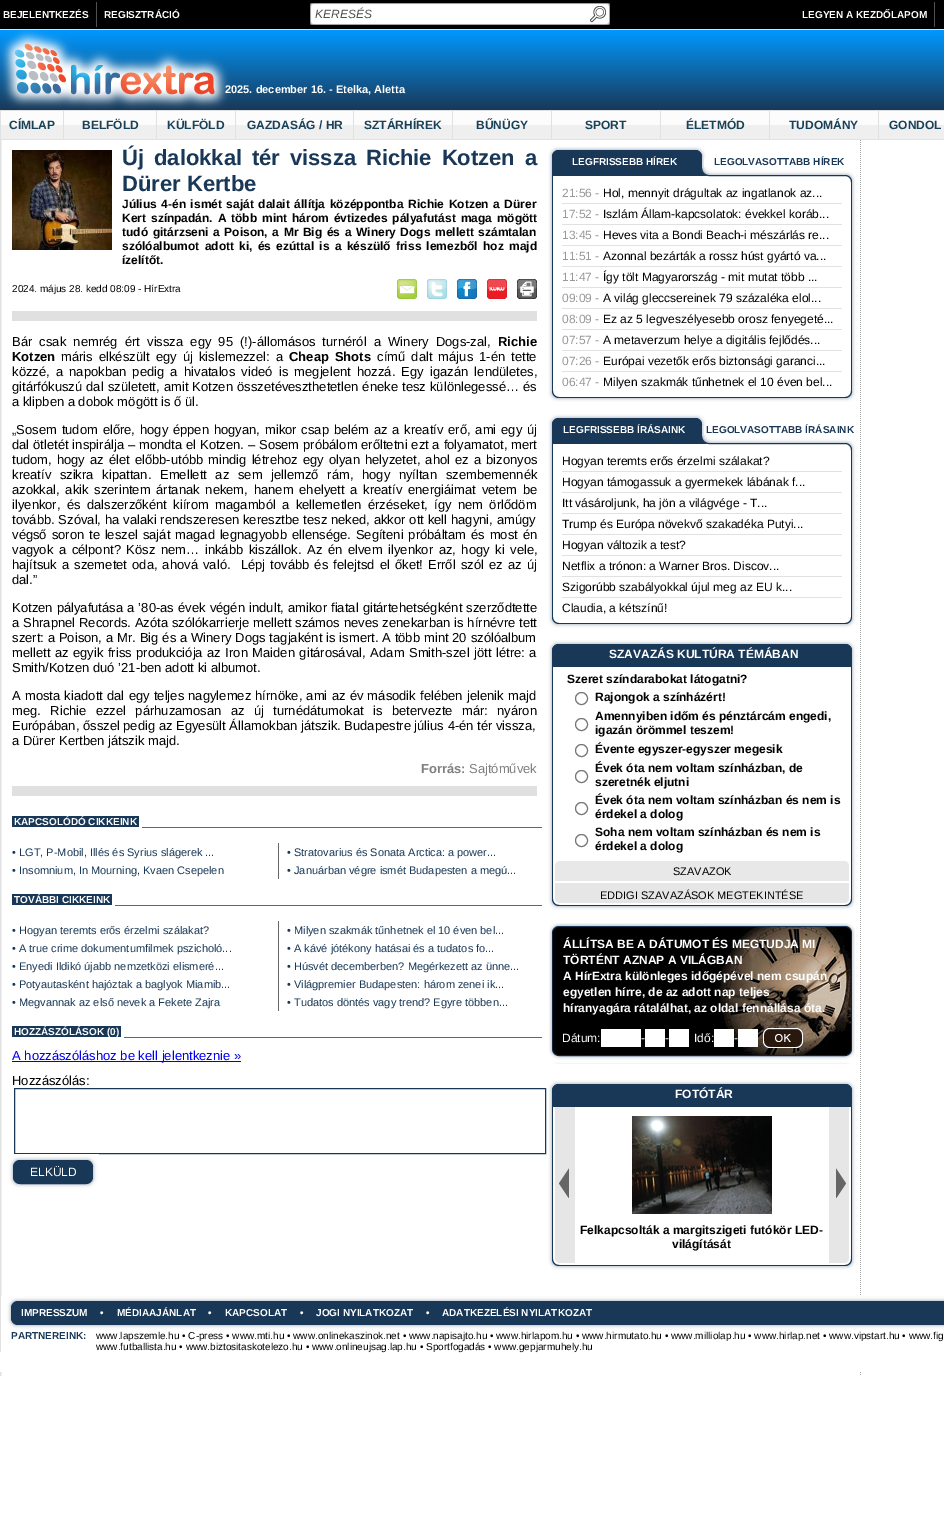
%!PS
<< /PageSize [944 1539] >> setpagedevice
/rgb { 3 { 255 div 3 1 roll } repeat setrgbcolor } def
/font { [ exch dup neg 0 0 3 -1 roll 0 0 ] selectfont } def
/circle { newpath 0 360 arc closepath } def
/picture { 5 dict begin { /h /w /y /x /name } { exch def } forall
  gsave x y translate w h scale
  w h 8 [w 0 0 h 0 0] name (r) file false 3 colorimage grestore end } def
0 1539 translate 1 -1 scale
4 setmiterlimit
255 255 255 rgb
0 0 944 1539 rectfill
(img/1.rgb) 0 110 1 30 picture
0 0 0 rgb
0 0 944 29 rectfill
78 81 80 rgb
96 2 1 25 rectfill
(img/2.rgb) 310 3 300 22 picture
934 2 1 25 rectfill
(img/3.rgb) 0 29 944 81 picture
(img/4.rgb) 1 110 62 30 picture
225 225 225 rgb
63 110 1 30 rectfill
(img/5.rgb) 64 110 92 30 picture
156 110 1 30 rectfill
(img/6.rgb) 157 110 78 30 picture
235 110 1 30 rectfill
(img/7.rgb) 236 110 117 30 picture
353 110 1 30 rectfill
(img/8.rgb) 354 110 98 30 picture
452 110 1 30 rectfill
(img/8.rgb) 453 110 98 30 picture
551 110 1 30 rectfill
(img/9.rgb) 552 110 108 30 picture
660 110 1 30 rectfill
(img/9.rgb) 661 110 108 30 picture
769 110 1 30 rectfill
(img/9.rgb) 770 110 108 30 picture
878 110 1 30 rectfill
(img/10.rgb) 879 110 65 30 picture
(img/11.rgb) 0 140 861 1236 picture
(img/12.rgb) 12 150 100 100 picture
(img/13.rgb) 397 279 20 20 picture
(img/14.rgb) 427 279 20 20 picture
(img/15.rgb) 457 279 20 20 picture
(img/16.rgb) 487 279 20 20 picture
(img/17.rgb) 517 279 20 20 picture
[
  [12 311 525 10 224 224 224]
  [12 786 525 10 224 224 224]
  [142 827 400 1 102 102 102]
  [12 816 127 11 25 56 87]
  [278 843 1 36 102 102 102]
  [115 905 427 1 102 102 102]
  [12 894 100 11 25 56 87]
  [278 921 1 90 102 102 102]
  [124 1037 418 1 102 102 102]
  [12 1026 109 11 25 56 87]
  [12 1061 229 1 0 0 238]
] { aload pop rgb rectfill } forall
25 56 87 rgb
14.5 1088.5 531 65 rectstroke
(img/18.rgb) 7 1154 92 36 picture
(img/19.rgb) 548 146 308 38 picture
(img/20.rgb) 548 184 308 207 picture
[
  [562 203 280 1 225 225 225]
  [562 224 280 1 225 225 225]
  [562 245 280 1 225 225 225]
  [562 266 280 1 225 225 225]
  [562 287 280 1 225 225 225]
  [562 308 280 1 225 225 225]
  [562 329 280 1 225 225 225]
  [562 350 280 1 225 225 225]
  [562 371 280 1 225 225 225]
] { aload pop rgb rectfill } forall
(img/21.rgb) 548 391 308 11 picture
(img/19.rgb) 548 414 308 38 picture
(img/22.rgb) 548 452 308 165 picture
[
  [562 471 280 1 225 225 225]
  [562 492 280 1 225 225 225]
  [562 513 280 1 225 225 225]
  [562 534 280 1 225 225 225]
  [562 555 280 1 225 225 225]
  [562 576 280 1 225 225 225]
  [562 597 280 1 225 225 225]
] { aload pop rgb rectfill } forall
(img/21.rgb) 548 617 308 11 picture
(img/23.rgb) 548 640 308 27 picture
(img/24.rgb) 548 667 308 215 picture
118 118 118 rgb
581.5 698.5 6 circle stroke
581.5 724.5 6 circle stroke
581.5 750.5 6 circle stroke
581.5 776.5 6 circle stroke
581.5 808.5 6 circle stroke
581.5 840.5 6 circle stroke
(img/25.rgb) 555 861 294 20 picture
(img/26.rgb) 548 882 308 28 picture
(img/27.rgb) 549 923 306 141 picture
[
  [601 1029 40 18 255 255 255]
  [645 1029 20 18 255 255 255]
  [669 1029 20 18 255 255 255]
  [714 1029 20 18 255 255 255]
  [738 1029 20 18 255 255 255]
] { aload pop rgb rectfill } forall
(img/28.rgb) 763 1028 40 20 picture
(img/23.rgb) 548 1080 308 27 picture
(img/29.rgb) 548 1107 308 150 picture
(img/30.rgb) 559 1168 10 30 picture
(img/31.rgb) 836 1168 10 30 picture
(img/32.rgb) 632 1116 140 98 picture
(img/33.rgb) 548 1257 308 13 picture
(img/34.rgb) 1 1296 943 34 picture
1 1330 860 22 rectfill
0 1352 861 20 rectfill
/LiberationSans-Bold 10 font
3 18 moveto (BEJELENTKEZÉS) show
104 18 moveto (REGISZTRÁCIÓ) show
/LiberationSans-Italic 12 font
78 81 80 rgb
315 18 moveto (KERESÉS) show
/LiberationSans-Bold 10 font
255 255 255 rgb
802 18 moveto (LEGYEN A KEZDŐLAPOM) show
/LiberationSans-Bold 11 font
225 93 moveto (2025. december 16. - Etelka, Aletta) show
/LiberationSans-Bold 12 font
25 65 87 rgb
[
  [(CÍMLAP) 9 129]
  [(BELFÖLD) 82 129]
  [(KÜLFÖLD) 167 129]
  [(GAZDASÁG / HR) 247 129]
  [(SZTÁRHÍREK) 364 129]
  [(BŰNÜGY) 476 129]
  [(SPORT) 585 129]
  [(ÉLETMÓD) 686 129]
  [(TUDOMÁNY) 789 129]
  [(GONDOL) 889 129]
] { aload pop moveto show } forall
/LiberationSans-Bold 22 font
25 56 87 rgb
122 165 moveto 3.75 0 32 (Új dalokkal tér vissza Richie Kotzen a) widthshow
122 191 moveto (Dürer Kertbe) show
/LiberationSans-Bold 12 font
0 0 0 rgb
122 208 moveto 1.25 0 32 (Július 4-én ismét saját dalait állítja középpontba Richie Kotzen a Dürer) widthshow
122 222 moveto 1.5 0 32 (Kert színpadán. A több mint három évtizedes pályafutást maga mögött) widthshow
122 236 moveto 1.25 0 32 (tudó gitárzseni a Poison, a Mr Big és a Winery Dogs mellett számtalan) widthshow
122 250 moveto 1.9 0 32 (szólóalbumot adott ki, és ezúttal is a készülő friss lemezből hoz majd) widthshow
122 264 moveto (ízelítőt.) show
/LiberationSans-Regular 10 font
12 292 moveto (2024. május 28. kedd 08:09 - HírExtra) show
/LiberationSans-Regular 13 font
12 346 moveto 3.6 0 32 (Bár csak nemrég ért vissza egy 95 \(!\)-állomásos turnéról a Winery Dogs-zal,) widthshow
/LiberationSans-Bold 13 font
498 346 moveto (Richie) show
12 361 moveto (Kotzen) show
/LiberationSans-Regular 13 font
61 361 moveto 2.5 0 32 (máris elkészült egy új kislemezzel: a) widthshow
/LiberationSans-Bold 13 font
289 361 moveto 2.5 0 32 (Cheap Shots) widthshow
/LiberationSans-Regular 13 font
377 361 moveto 2.5 0 32 (című dalt május 1-én tette) widthshow
12 376 moveto 2.6 0 32 (közzé, a napokban pedig a hivatalos videó is megjelent hozzá. Egy igazán lendületes,) widthshow
12 391 moveto 0.5 0 32 (gitárfókuszú dal született, amit Kotzen összetéveszthetetlen éneke tesz különlegessé… és) widthshow
12 406 moveto (a klipben a dobok mögött is ő ül.) show
12 434 moveto 1.2 0 32 („Sosem tudom előre, hogy éppen hogyan, mikor csap belém az a kreatív erő, ami egy új) widthshow
12 449 moveto 0.25 0 32 (dal ötletét inspirálja – mondta el Kotzen. – Sosem próbálom erőltetni ezt a folyamatot, mert) widthshow
12 464 moveto 1.4 0 32 (tudom, hogy az élet előbb-utóbb mindig létrehoz egy olyan helyzetet, ahol ez a bizonyos) widthshow
12 479 moveto 5 0 32 (kreatív szikra kipattan. Emellett az sem jellemző rám, hogy nyíltan szembemennék) widthshow
12 494 moveto 2.1 0 32 (azokkal, akik szerintem ártanak nekem, hanem ehelyett a kreatív energiáimat vetem be) widthshow
12 509 moveto 2.75 0 32 (ilyenkor, és dalszerzőként kiírom magamból a kellemetlen érzéseket, így nem örlődöm) widthshow
12 524 moveto 0.25 0 32 (tovább. Szóval, ha valaki rendszeresen keresztbe tesz neked, akkor ott kell hagyni, amúgy) widthshow
12 539 moveto 1.25 0 32 (végső soron te leszel saját magad legnagyobb ellensége. Segíteni próbáltam és most én) widthshow
12 554 moveto 2 0 32 (vagyok a célpont? Kösz nem… inkább kiszállok. Az én elvem ilyenkor az, hogy ki vele,) widthshow
12 569 moveto 1.5 0 32 (hajítsuk a szemetet oda, ahová való.  Lépj tovább és felejtsd el őket! Erről szól ez az új) widthshow
12 584 moveto (dal.”) show
12 612 moveto 0.5 0 32 (Kotzen pályafutása a ’80-as évek végén indult, amikor fiatal gitártehetségként szerződtette) widthshow
12 627 moveto 0.25 0 32 (a Shrapnel Records. Azóta szólókarrierje mellett számos neves zenekarban is hírnévre tett) widthshow
12 642 moveto 0.25 0 32 (szert: a Poison, a Mr. Big és a Winery Dogs tagjaként is ismert. A több mint 20 szólóalbum) widthshow
12 657 moveto 0.9 0 32 (mellett az egyik friss produkciója az Iron Maiden gitárosával, Adam Smith-szel jött létre: a) widthshow
12 672 moveto (Smith/Kotzen duó ’21-ben adott ki albumot.) show
12 700 moveto 0.6 0 32 (A mosta kiadott dal egy teljes nagylemez hírnöke, ami az év második felében jelenik majd) widthshow
12 715 moveto 5.75 0 32 (meg. Richie ezzel párhuzamosan az új turnédátumokat is betervezte már: nyáron) widthshow
12 730 moveto (Európában, ősszel pedig az Egyesült Államokban játszik. Budapestre július 4-én tér vissza,) show
12 745 moveto (a Dürer Kertben játszik majd.) show
/LiberationSans-Bold 13 font
128 128 128 rgb
421 773 moveto (Forrás:) show
/LiberationSans-Regular 13 font
469 773 moveto (Sajtóművek) show
/LiberationSans-Bold 10 font
255 255 255 rgb
14 825 moveto (KAPCSOLÓDÓ CIKKEINK) show
/LiberationSans-Regular 11 font
25 56 87 rgb
[
  [(• LGT, P-Mobil, Illés és Syrius slágerek ...) 12 856]
  [(• Stratovarius és Sonata Arctica: a power...) 287 856]
  [(• Insomnium, In Mourning, Kvaen Csepelen) 12 874]
  [(• Januárban végre ismét Budapesten a megú...) 287 874]
] { aload pop moveto show } forall
/LiberationSans-Bold 10 font
255 255 255 rgb
14 903 moveto (TOVÁBBI CIKKEINK) show
/LiberationSans-Regular 11 font
25 56 87 rgb
[
  [(• Hogyan teremts erős érzelmi szálakat?) 12 934]
  [(• Milyen szakmák tűnhetnek el 10 éven bel...) 287 934]
  [(• A true crime dokumentumfilmek pszicholó...) 12 952]
  [(• A kávé jótékony hatásai és a tudatos fo...) 287 952]
  [(• Enyedi Ildikó újabb nemzetközi elismeré...) 12 970]
  [(• Húsvét decemberben? Megérkezett az ünne...) 287 970]
  [(• Potyautasként hajóztak a baglyok Miamib...) 12 988]
  [(• Világpremier Budapesten: három zenei ik...) 287 988]
  [(• Megvannak az első nevek a Fekete Zajra) 12 1006]
  [(• Tudatos döntés vagy trend? Egyre többen...) 287 1006]
] { aload pop moveto show } forall
/LiberationSans-Bold 10 font
255 255 255 rgb
14 1035 moveto (HOZZÁSZÓLÁSOK \(0\)) show
/LiberationSans-Regular 13 font
0 0 238 rgb
12 1060 moveto (A hozzászóláshoz be kell jelentkeznie ») show
0 0 0 rgb
12 1085 moveto (Hozzászólás:) show
/LiberationSans-Regular 12 font
255 255 255 rgb
30 1176 moveto (ELKÜLD) show
/LiberationSans-Bold 10 font
572 165 moveto (LEGFRISSEBB HÍREK) show
25 56 87 rgb
714 165 moveto (LEGOLVASOTTABB HÍREK) show
/LiberationSans-Regular 12 font
153 153 153 rgb
562 197 moveto (21:56 -) show
0 0 0 rgb
603 197 moveto (Hol, mennyit drágultak az ingatlanok az...) show
153 153 153 rgb
562 218 moveto (17:52 -) show
0 0 0 rgb
603 218 moveto (Iszlám Állam-kapcsolatok: évekkel koráb...) show
153 153 153 rgb
562 239 moveto (13:45 -) show
0 0 0 rgb
603 239 moveto (Heves vita a Bondi Beach-i mészárlás re...) show
153 153 153 rgb
562 260 moveto (11:51 -) show
0 0 0 rgb
603 260 moveto (Azonnal bezárták a rossz húst gyártó va...) show
153 153 153 rgb
562 281 moveto (11:47 -) show
0 0 0 rgb
603 281 moveto (Így tölt Magyarország - mit mutat több ...) show
153 153 153 rgb
562 302 moveto (09:09 -) show
0 0 0 rgb
603 302 moveto (A világ gleccsereinek 79 százaléka elol...) show
153 153 153 rgb
562 323 moveto (08:09 -) show
0 0 0 rgb
603 323 moveto (Ez az 5 legveszélyesebb orosz fenyegeté...) show
153 153 153 rgb
562 344 moveto (07:57 -) show
0 0 0 rgb
603 344 moveto (A metaverzum helye a digitális fejlődés...) show
153 153 153 rgb
562 365 moveto (07:26 -) show
0 0 0 rgb
603 365 moveto (Európai vezetők erős biztonsági garanci...) show
153 153 153 rgb
562 386 moveto (06:47 -) show
0 0 0 rgb
603 386 moveto (Milyen szakmák tűnhetnek el 10 éven bel...) show
/LiberationSans-Bold 10 font
255 255 255 rgb
563 433 moveto (LEGFRISSEBB ÍRÁSAINK) show
25 56 87 rgb
706 433 moveto (LEGOLVASOTTABB ÍRÁSAINK) show
/LiberationSans-Regular 12 font
0 0 0 rgb
[
  [(Hogyan teremts erős érzelmi szálakat?) 562 465]
  [(Hogyan támogassuk a gyermekek lábának f...) 562 486]
  [(Itt vásároljunk, ha jön a világvége - T...) 562 507]
  [(Trump és Európa növekvő szakadéka Putyi...) 562 528]
  [(Hogyan változik a test?) 562 549]
  [(Netflix a trónon: a Warner Bros. Discov...) 562 570]
  [(Szigorúbb szabályokkal újul meg az EU k...) 562 591]
  [(Claudia, a kétszínű!) 562 612]
] { aload pop moveto show } forall
/LiberationSans-Bold 12 font
255 255 255 rgb
609 658 moveto (SZAVAZÁS KULTÚRA TÉMÁBAN) show
0 0 0 rgb
[
  [(Szeret színdarabokat látogatni?) 567 683]
  [(Rajongok a színházért!) 595 701]
  [(Amennyiben időm és pénztárcám engedi,) 595 720]
  [(igazán örömmel teszem!) 595 734]
  [(Évente egyszer-egyszer megesik) 595 753]
  [(Évek óta nem voltam színházban, de) 595 772]
  [(szeretnék eljutni) 595 786]
  [(Évek óta nem voltam színházban és nem is) 595 804]
  [(érdekel a dolog) 595 818]
  [(Soha nem voltam színházban és nem is) 595 836]
  [(érdekel a dolog) 595 850]
] { aload pop moveto show } forall
/LiberationSans-Regular 11 font
673 875 moveto (SZAVAZOK) show
600 899 moveto (EDDIGI SZAVAZÁSOK MEGTEKINTÉSE) show
/LiberationSans-Bold 12 font
255 255 255 rgb
[
  [(ÁLLÍTSA BE A DÁTUMOT ÉS MEGTUDJA MI) 563 948]
  [(TÖRTÉNT AZNAP A VILÁGBAN) 563 964]
  [(A HírExtra különleges időgépével nem csupán) 563 980]
  [(egyetlen hírre, de az adott nap teljes) 563 996]
  [(híranyagára rátalálhat, az oldal fennállása óta.) 563 1012]
] { aload pop moveto show } forall
/LiberationSans-Regular 12 font
[
  [(Dátum:) 562 1042]
  [(-) 641 1042]
  [(-) 665 1042]
  [(Idő:) 694 1042]
  [(-) 734 1042]
] { aload pop moveto show } forall
/LiberationSans-Bold 12 font
675 1098 moveto (FOTÓTÁR) show
0 0 0 rgb
580 1234 moveto (Felkapcsolták a margitszigeti futókör LED-) show
672 1248 moveto (világítását) show
/LiberationSans-Bold 10 font
255 255 255 rgb
[
  [(IMPRESSZUM) 21 1316]
  [(•) 100 1316]
  [(MÉDIAAJÁNLAT) 117 1316]
  [(•) 208 1316]
  [(KAPCSOLAT) 225 1316]
  [(•) 300 1316]
  [(JOGI NYILATKOZAT) 316 1316]
  [(•) 426 1316]
  [(ADATKEZELÉSI NYILATKOZAT) 442 1316]
] { aload pop moveto show } forall
25 56 87 rgb
11 1339 moveto (PARTNEREINK:) show
/LiberationSans-Regular 10 font
0 0 0 rgb
96 1339 moveto (www.lapszemle.hu • C-press • www.mti.hu • www.onlinekaszinok.net • www.napisajto.hu • www.hirlapom.hu • www.hirmutato.hu • www.milliolap.hu • www.hirlap.net • www.vipstart.hu • www.fig) show
96 1350 moveto (www.futballista.hu • www.biztositaskotelezo.hu • www.onlineujsag.lap.hu • Sportfogadás • www.gepjarmuhely.hu) show
showpage
